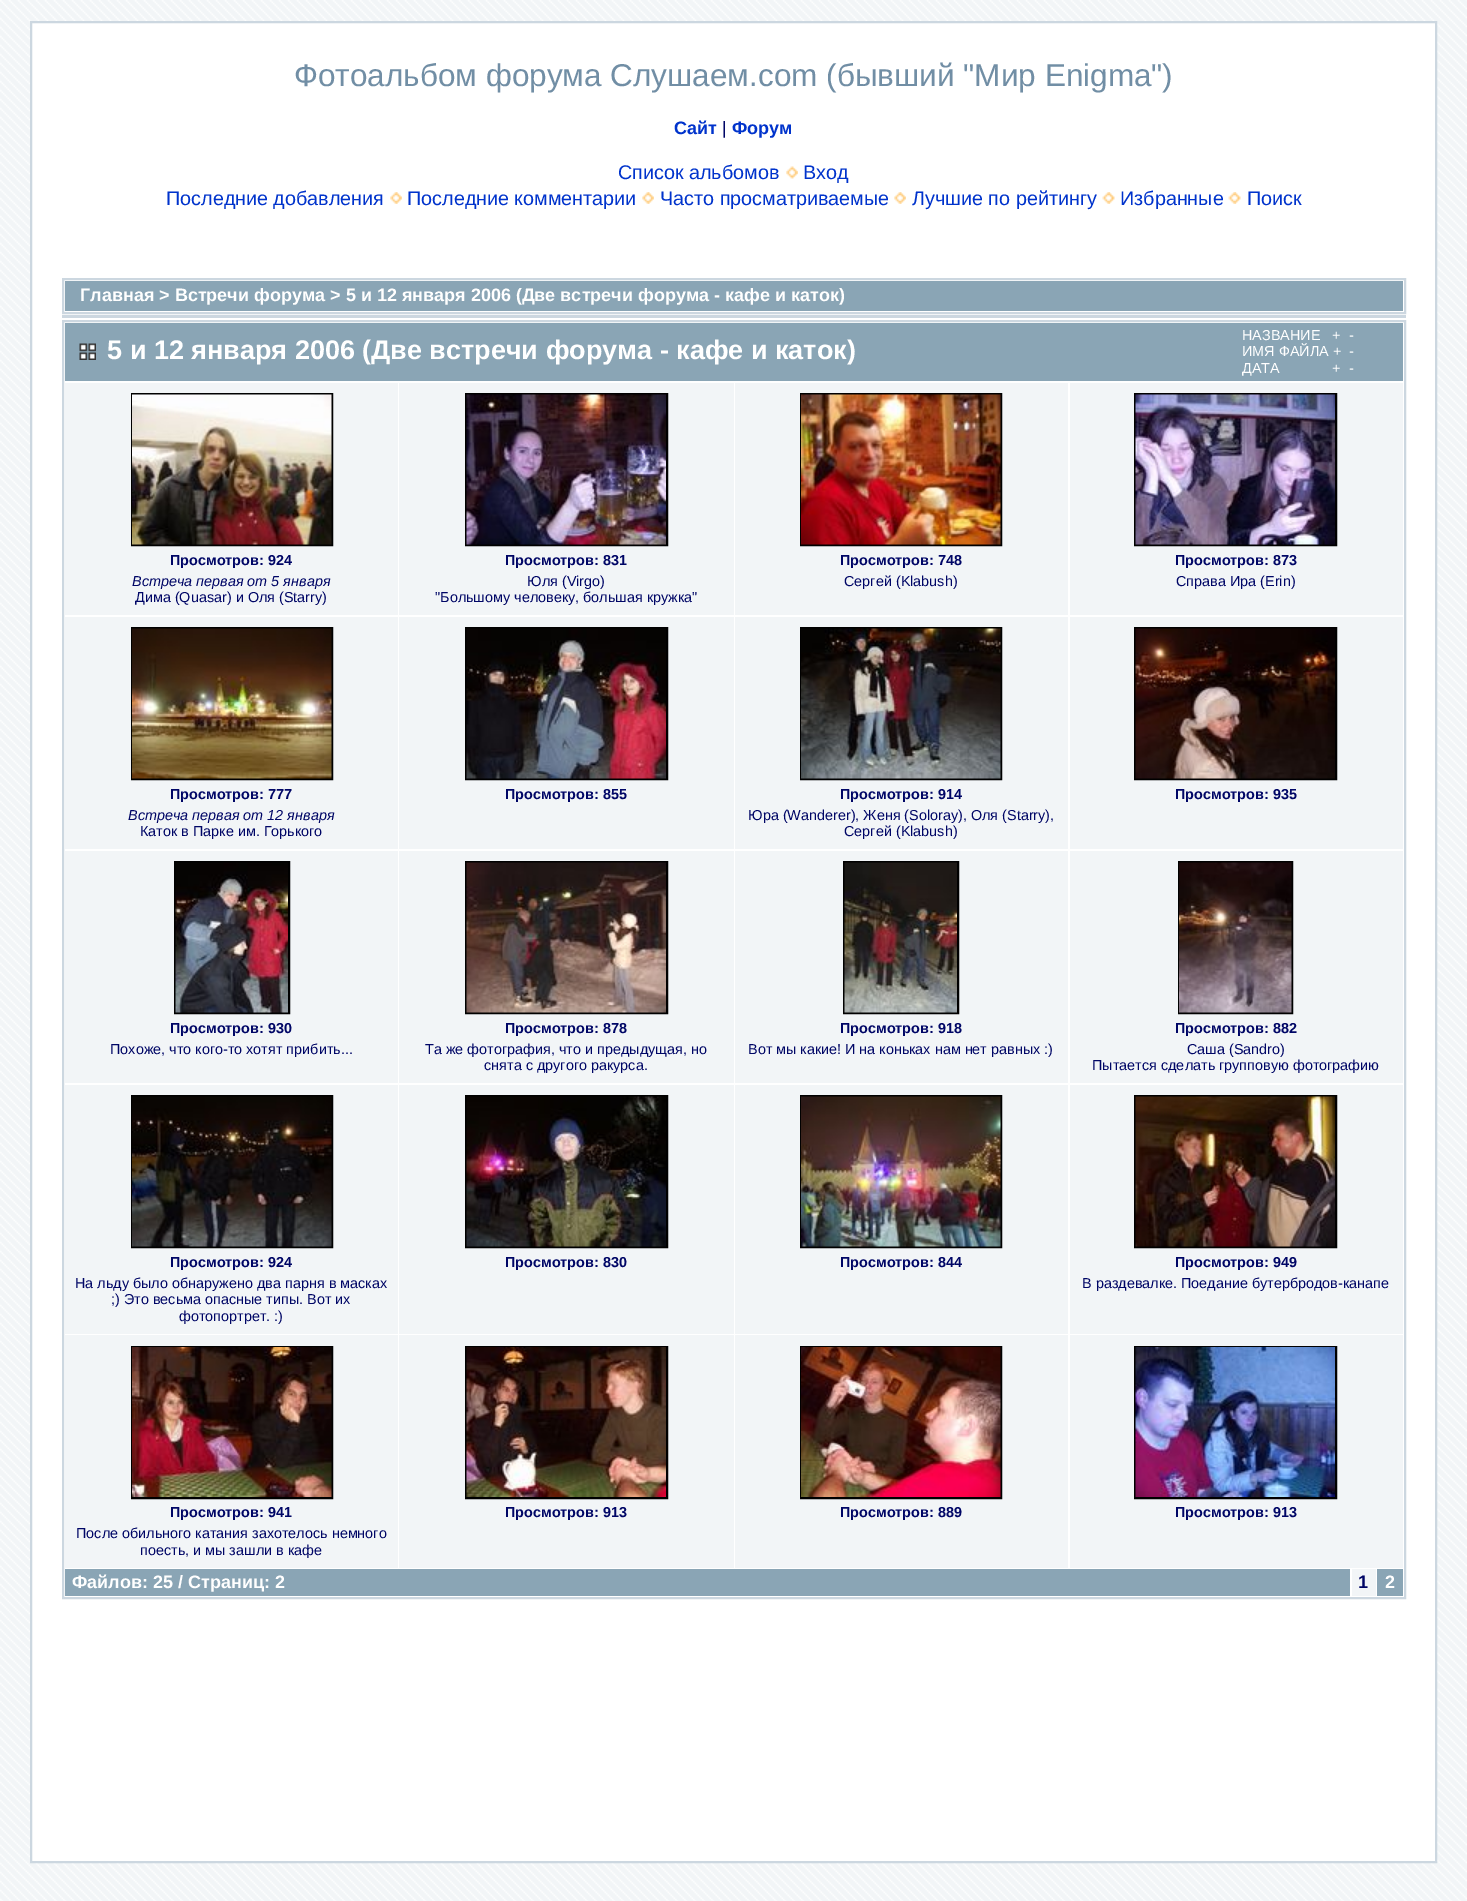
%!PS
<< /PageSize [1467 1901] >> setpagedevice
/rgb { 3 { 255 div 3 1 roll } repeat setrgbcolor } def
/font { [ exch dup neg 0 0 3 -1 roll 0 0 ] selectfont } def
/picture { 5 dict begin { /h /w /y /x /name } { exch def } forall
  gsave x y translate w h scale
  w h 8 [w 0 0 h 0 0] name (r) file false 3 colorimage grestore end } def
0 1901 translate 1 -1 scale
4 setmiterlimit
242 245 247 rgb
0 0 1467 1901 rectfill
(img/1.rgb) 0 0 1467 1901 picture
255 255 255 rgb
31 22 moveto 1436 22 lineto 1436 1862 lineto 31 1862 lineto closepath gsave fill grestore
204 215 224 rgb
2 setlinewidth
stroke
(img/2.rgb) 786 166 12 13 picture
(img/3.rgb) 390 192 12 12 picture
(img/4.rgb) 642 192 12 12 picture
(img/4.rgb) 894 192 12 12 picture
(img/5.rgb) 1102 192 13 12 picture
(img/5.rgb) 1228 192 13 12 picture
63 279 1342 34 rectstroke
138 165 181 rgb
65 281 1338 30 rectfill
204 215 224 rgb
62 315 1344 3 rectfill
63 321 1342 1277 rectstroke
138 165 181 rgb
65 323 1338 58 rectfill
(img/6.rgb) 79 343 17 17 picture
242 245 247 rgb
65 383 333 232 rectfill
0 0 0 rgb
132 394 200 151 rectstroke
(img/7.rgb) 132 394 200 151 picture
242 245 247 rgb
399 383 335 232 rectfill
0 0 0 rgb
466 394 201 151 rectstroke
(img/8.rgb) 466 394 200 151 picture
242 245 247 rgb
735 383 333 232 rectfill
0 0 0 rgb
801 394 200 151 rectstroke
(img/9.rgb) 801 394 200 151 picture
242 245 247 rgb
1070 383 333 232 rectfill
0 0 0 rgb
1135 394 201 151 rectstroke
(img/10.rgb) 1135 394 200 151 picture
242 245 247 rgb
65 617 333 232 rectfill
0 0 0 rgb
132 628 200 151 rectstroke
(img/11.rgb) 132 628 200 151 picture
242 245 247 rgb
399 617 335 232 rectfill
0 0 0 rgb
466 628 201 151 rectstroke
(img/12.rgb) 466 628 200 151 picture
242 245 247 rgb
735 617 333 232 rectfill
0 0 0 rgb
801 628 200 151 rectstroke
(img/13.rgb) 801 628 200 151 picture
242 245 247 rgb
1070 617 333 232 rectfill
0 0 0 rgb
1135 628 201 151 rectstroke
(img/14.rgb) 1135 628 200 151 picture
242 245 247 rgb
65 851 333 232 rectfill
0 0 0 rgb
175 862 114 151 rectstroke
(img/15.rgb) 175 862 113 151 picture
242 245 247 rgb
399 851 335 232 rectfill
0 0 0 rgb
466 862 201 151 rectstroke
(img/16.rgb) 466 862 200 151 picture
242 245 247 rgb
735 851 333 232 rectfill
0 0 0 rgb
844 862 114 151 rectstroke
(img/17.rgb) 844 862 113 151 picture
242 245 247 rgb
1070 851 333 232 rectfill
0 0 0 rgb
1179 862 113 151 rectstroke
(img/18.rgb) 1179 862 113 151 picture
242 245 247 rgb
65 1085 333 249 rectfill
0 0 0 rgb
132 1096 200 151 rectstroke
(img/19.rgb) 132 1096 200 151 picture
242 245 247 rgb
399 1085 335 249 rectfill
0 0 0 rgb
466 1096 201 151 rectstroke
(img/20.rgb) 466 1096 200 151 picture
242 245 247 rgb
735 1085 333 249 rectfill
0 0 0 rgb
801 1096 200 151 rectstroke
(img/21.rgb) 801 1096 200 151 picture
242 245 247 rgb
1070 1085 333 249 rectfill
0 0 0 rgb
1135 1096 201 151 rectstroke
(img/22.rgb) 1135 1096 200 151 picture
242 245 247 rgb
65 1335 333 233 rectfill
0 0 0 rgb
132 1347 200 151 rectstroke
(img/23.rgb) 132 1347 200 150 picture
242 245 247 rgb
399 1335 335 233 rectfill
0 0 0 rgb
466 1347 201 151 rectstroke
(img/24.rgb) 466 1347 200 150 picture
242 245 247 rgb
735 1335 333 233 rectfill
0 0 0 rgb
801 1347 200 151 rectstroke
(img/25.rgb) 801 1347 200 150 picture
242 245 247 rgb
1070 1335 333 233 rectfill
0 0 0 rgb
1135 1347 201 151 rectstroke
(img/26.rgb) 1135 1347 200 150 picture
[
  [65 1569 1285 27 138 165 181]
  [1352 1569 24 27 242 245 247]
  [1377 1569 26 27 138 165 181]
] { aload pop rgb rectfill } forall
/LiberationSans-Regular 31.5 font
113 142 165 rgb
294 86 moveto (Фотоальбом форума Слушаем.com \(бывший "Мир Enigma"\)) show
/LiberationSans-Bold 18 font
0 51 204 rgb
674 134 moveto (Сайт) show
/LiberationSans-Regular 18 font
0 6 102 rgb
722 134 moveto (|) show
/LiberationSans-Bold 18 font
0 51 204 rgb
732 134 moveto (Форум) show
/LiberationSans-Regular 19.75 font
[
  [(Список альбомов) 618 179]
  [(Вход) 803 179]
  [(Последние добавления) 166 205]
  [(Последние комментарии) 407 205]
  [(Часто просматриваемые) 660 205]
  [(Лучшие по рейтингу) 912 205]
  [(Избранные) 1120 205]
  [(Поиск) 1247 205]
] { aload pop moveto show } forall
/LiberationSans-Bold 18 font
255 255 255 rgb
80 301 moveto (Главная > Встречи форума > 5 и 12 января 2006 \(Две встречи форума - кафе и каток\)) show
/LiberationSans-Bold 27 font
107 359 moveto (5 и 12 января 2006 \(Две встречи форума - кафе и каток\)) show
/LiberationSans-Regular 14.4 font
[
  [(НАЗВАНИЕ) 1242 340]
  [(+) 1332 340]
  [(-) 1349 340]
  [(ИМЯ ФАЙЛА +) 1242 356]
  [(-) 1349 356]
  [(ДАТА) 1242 373]
  [(+) 1332 373]
  [(-) 1349 373]
] { aload pop moveto show } forall
/LiberationSans-Bold 14.4 font
0 6 102 rgb
170 565 moveto (Просмотров: 924) show
/LiberationSans-Italic 14.4 font
132 586 moveto (Встреча первая от 5 января) show
/LiberationSans-Regular 14.4 font
135 602 moveto (Дима \(Quasar\) и Оля \(Starry\)) show
/LiberationSans-Bold 14.4 font
505 565 moveto (Просмотров: 831) show
/LiberationSans-Regular 14.4 font
527 586 moveto (Юля \(Virgo\)) show
435 602 moveto ("Большому человеку, большая кружка") show
/LiberationSans-Bold 14.4 font
840 565 moveto (Просмотров: 748) show
/LiberationSans-Regular 14.4 font
844 586 moveto (Сергей \(Klabush\)) show
/LiberationSans-Bold 14.4 font
1175 565 moveto (Просмотров: 873) show
/LiberationSans-Regular 14.4 font
1176 586 moveto (Справа Ира \(Erin\)) show
/LiberationSans-Bold 14.4 font
170 799 moveto (Просмотров: 777) show
/LiberationSans-Italic 14.4 font
128 820 moveto (Встреча первая от 12 января) show
/LiberationSans-Regular 14.4 font
140 836 moveto (Каток в Парке им. Горького) show
/LiberationSans-Bold 14.4 font
505 799 moveto (Просмотров: 855) show
840 799 moveto (Просмотров: 914) show
/LiberationSans-Regular 14.4 font
748 820 moveto (Юра \(Wanderer\), Женя \(Soloray\), Оля \(Starry\),) show
844 836 moveto (Сергей \(Klabush\)) show
/LiberationSans-Bold 14.4 font
1175 799 moveto (Просмотров: 935) show
170 1033 moveto (Просмотров: 930) show
/LiberationSans-Regular 14.4 font
110 1054 moveto (Похоже, что кого-то хотят прибить...) show
/LiberationSans-Bold 14.4 font
505 1033 moveto (Просмотров: 878) show
/LiberationSans-Regular 14.4 font
425 1054 moveto (Та же фотография, что и предыдущая, но) show
484 1070 moveto (снята с другого ракурса.) show
/LiberationSans-Bold 14.4 font
840 1033 moveto (Просмотров: 918) show
/LiberationSans-Regular 14.4 font
748 1054 moveto (Вот мы какие! И на коньках нам нет равных :\)) show
/LiberationSans-Bold 14.4 font
1175 1033 moveto (Просмотров: 882) show
/LiberationSans-Regular 14.4 font
1187 1054 moveto (Саша \(Sandro\)) show
1092 1070 moveto (Пытается сделать групповую фотографию) show
/LiberationSans-Bold 14.4 font
170 1267 moveto (Просмотров: 924) show
/LiberationSans-Regular 14.4 font
[
  [(На льду было обнаружено два парня в масках) 75 1288]
  [(;\) Это весьма опасные типы. Вот их) 111 1304]
  [(фотопортрет. :\)) 179 1321]
] { aload pop moveto show } forall
/LiberationSans-Bold 14.4 font
[
  [(Просмотров: 830) 505 1267]
  [(Просмотров: 844) 840 1267]
  [(Просмотров: 949) 1175 1267]
] { aload pop moveto show } forall
/LiberationSans-Regular 14.4 font
1082 1288 moveto (В раздевалке. Поедание бутербродов-канапе) show
/LiberationSans-Bold 14.4 font
170 1517 moveto (Просмотров: 941) show
/LiberationSans-Regular 14.4 font
76 1538 moveto (После обильного катания захотелось немного) show
140 1555 moveto (поесть, и мы зашли в кафе) show
/LiberationSans-Bold 14.4 font
[
  [(Просмотров: 913) 505 1517]
  [(Просмотров: 889) 840 1517]
  [(Просмотров: 913) 1175 1517]
] { aload pop moveto show } forall
/LiberationSans-Bold 18 font
255 255 255 rgb
72 1588 moveto (Файлов: 25 / Страниц: 2) show
0 6 102 rgb
1358 1588 moveto (1) show
255 255 255 rgb
1385 1588 moveto (2) show
showpage
